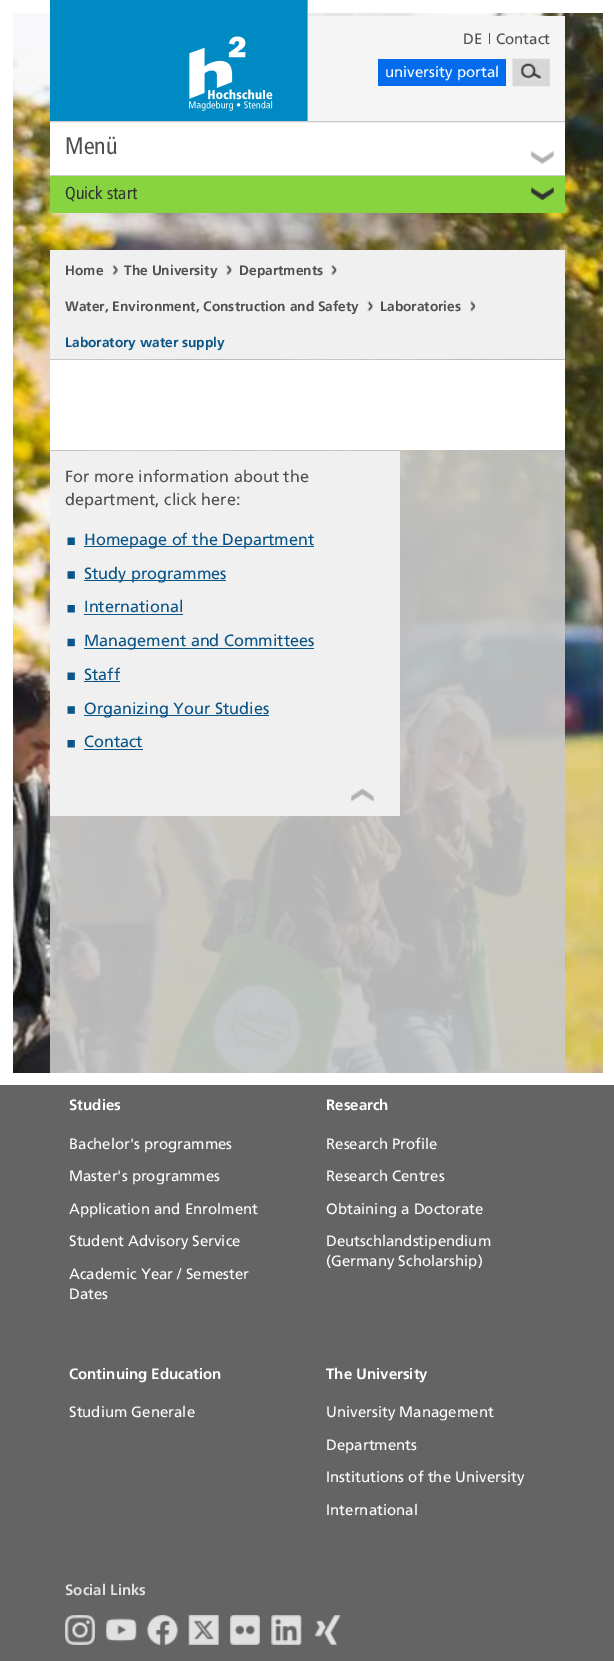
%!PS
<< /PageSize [614 1661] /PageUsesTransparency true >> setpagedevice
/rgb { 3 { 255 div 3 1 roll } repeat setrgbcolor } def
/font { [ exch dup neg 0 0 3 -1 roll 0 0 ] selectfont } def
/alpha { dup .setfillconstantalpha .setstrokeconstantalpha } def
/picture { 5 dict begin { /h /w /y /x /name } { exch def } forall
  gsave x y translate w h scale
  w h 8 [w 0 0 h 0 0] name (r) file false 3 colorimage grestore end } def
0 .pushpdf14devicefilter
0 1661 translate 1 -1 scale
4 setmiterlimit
255 255 255 rgb
0 0 614 1661 rectfill
(img/1.rgb) 13 13 590 1060 picture
94 183 227 rgb
307 0 1 121 rectfill
(img/2.rgb) 50 0 257 121 picture
[
  [308 16 257 105 245 245 245]
  [489 33 1 11 80 80 80]
  [378 59 128 27 2 108 237]
] { aload pop rgb rectfill } forall
(img/3.rgb) 512 58 38 29 picture
[
  [50 122 515 1 240 240 240]
  [50 121 515 1 204 204 204]
  [50 175 515 1 204 204 204]
  [50 123 515 52 255 255 255]
] { aload pop rgb rectfill } forall
(img/4.rgb) 531 151 23 13 picture
136 212 64 rgb
50 176 515 37 rectfill
(img/5.rgb) 531 187 23 13 picture
240 240 240 rgb
50 250 515 109 rectfill
(img/6.rgb) 112 265 6 10 picture
(img/7.rgb) 226 265 6 10 picture
(img/7.rgb) 331 265 6 10 picture
(img/8.rgb) 367 301 6 11 picture
(img/9.rgb) 470 301 5 11 picture
0.9 alpha
[
  [50 359 515 714 200 200 200]
] { aload pop rgb rectfill } forall
1 alpha
[
  [50 360 515 90 255 255 255]
  [50 451 350 365 240 240 240]
] { aload pop rgb rectfill } forall
(img/10.rgb) 67 537 8 8 picture
10 84 135 rgb
84 546 230 1 rectfill
(img/11.rgb) 67 571 8 8 picture
84 580 142 1 rectfill
(img/12.rgb) 67 605 8 8 picture
84 614 99 1 rectfill
(img/13.rgb) 67 638 8 9 picture
84 648 230 1 rectfill
(img/10.rgb) 67 672 8 8 picture
84 681 36 1 rectfill
(img/11.rgb) 67 706 8 8 picture
84 715 185 1 rectfill
(img/12.rgb) 67 740 8 8 picture
84 749 59 1 rectfill
(img/14.rgb) 351 788 23 14 picture
100 100 100 rgb
0 1085 614 576 rectfill
(img/15.rgb) 65 1615 30 30 picture
(img/16.rgb) 106 1618 31 24 picture
(img/17.rgb) 147 1615 31 30 picture
(img/18.rgb) 188 1615 31 30 picture
(img/19.rgb) 230 1615 30 30 picture
(img/20.rgb) 271 1615 31 30 picture
(img/21.rgb) 314 1615 27 30 picture
/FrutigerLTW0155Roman-Regular 15 font
80 80 80 rgb
463 44 moveto (DE) show
496 44 moveto (Contact) show
255 255 255 rgb
385 77 moveto (university portal) show
/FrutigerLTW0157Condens-Regular 24 font
80 80 80 rgb
65 154 moveto (Menü) show
/FrutigerLTW0157Condens-Regular 17.5 font
50 50 50 rgb
65 199 moveto (Quick start) show
/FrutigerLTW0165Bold-Bold 13.75 font
80 80 80 rgb
[
  [(Home) 65 275]
  [(The University) 124 275]
  [(Departments) 239 275]
  [(Water, Environment, Construction and Safety) 65 311]
  [(Laboratories) 380 311]
] { aload pop moveto show } forall
10 84 135 rgb
65 347 moveto (Laboratory water supply) show
/FrutigerLTW0155Roman-Regular 16.25 font
80 80 80 rgb
65 482 moveto (For more information about the) show
65 505 moveto (department, click here:) show
10 84 135 rgb
[
  [(Homepage of the Department) 84 545]
  [(Study programmes) 84 579]
  [(International) 84 612]
  [(Management and Committees) 84 646]
  [(Staff) 84 680]
  [(Organizing Your Studies) 84 714]
  [(Contact) 84 747]
] { aload pop moveto show } forall
/FrutigerLTW0165Bold-Bold 15 font
255 255 255 rgb
69 1110 moveto (Studies) show
/FrutigerLTW0155Roman-Regular 15 font
[
  [(Bachelor's programmes) 69 1149]
  [(Master's programmes) 69 1181]
  [(Application and Enrolment) 69 1214]
  [(Student Advisory Service) 69 1246]
  [(Academic Year / Semester) 69 1279]
  [(Dates) 69 1299]
] { aload pop moveto show } forall
/FrutigerLTW0165Bold-Bold 15 font
326 1110 moveto (Research) show
/FrutigerLTW0155Roman-Regular 15 font
[
  [(Research Profile) 326 1149]
  [(Research Centres) 326 1181]
  [(Obtaining a Doctorate) 326 1214]
  [(Deutschlandstipendium) 326 1246]
  [(\(Germany Scholarship\)) 326 1266]
] { aload pop moveto show } forall
/FrutigerLTW0165Bold-Bold 15 font
69 1379 moveto (Continuing Education) show
/FrutigerLTW0155Roman-Regular 15 font
69 1417 moveto (Studium Generale) show
/FrutigerLTW0165Bold-Bold 15 font
326 1379 moveto (The University) show
/FrutigerLTW0155Roman-Regular 15 font
[
  [(University Management) 326 1417]
  [(Departments) 326 1450]
  [(Institutions of the University) 326 1482]
  [(International) 326 1515]
] { aload pop moveto show } forall
/FrutigerLTW0165Bold-Bold 15 font
225 225 225 rgb
65 1595 moveto (Social Links) show
.poppdf14devicefilter showpage
